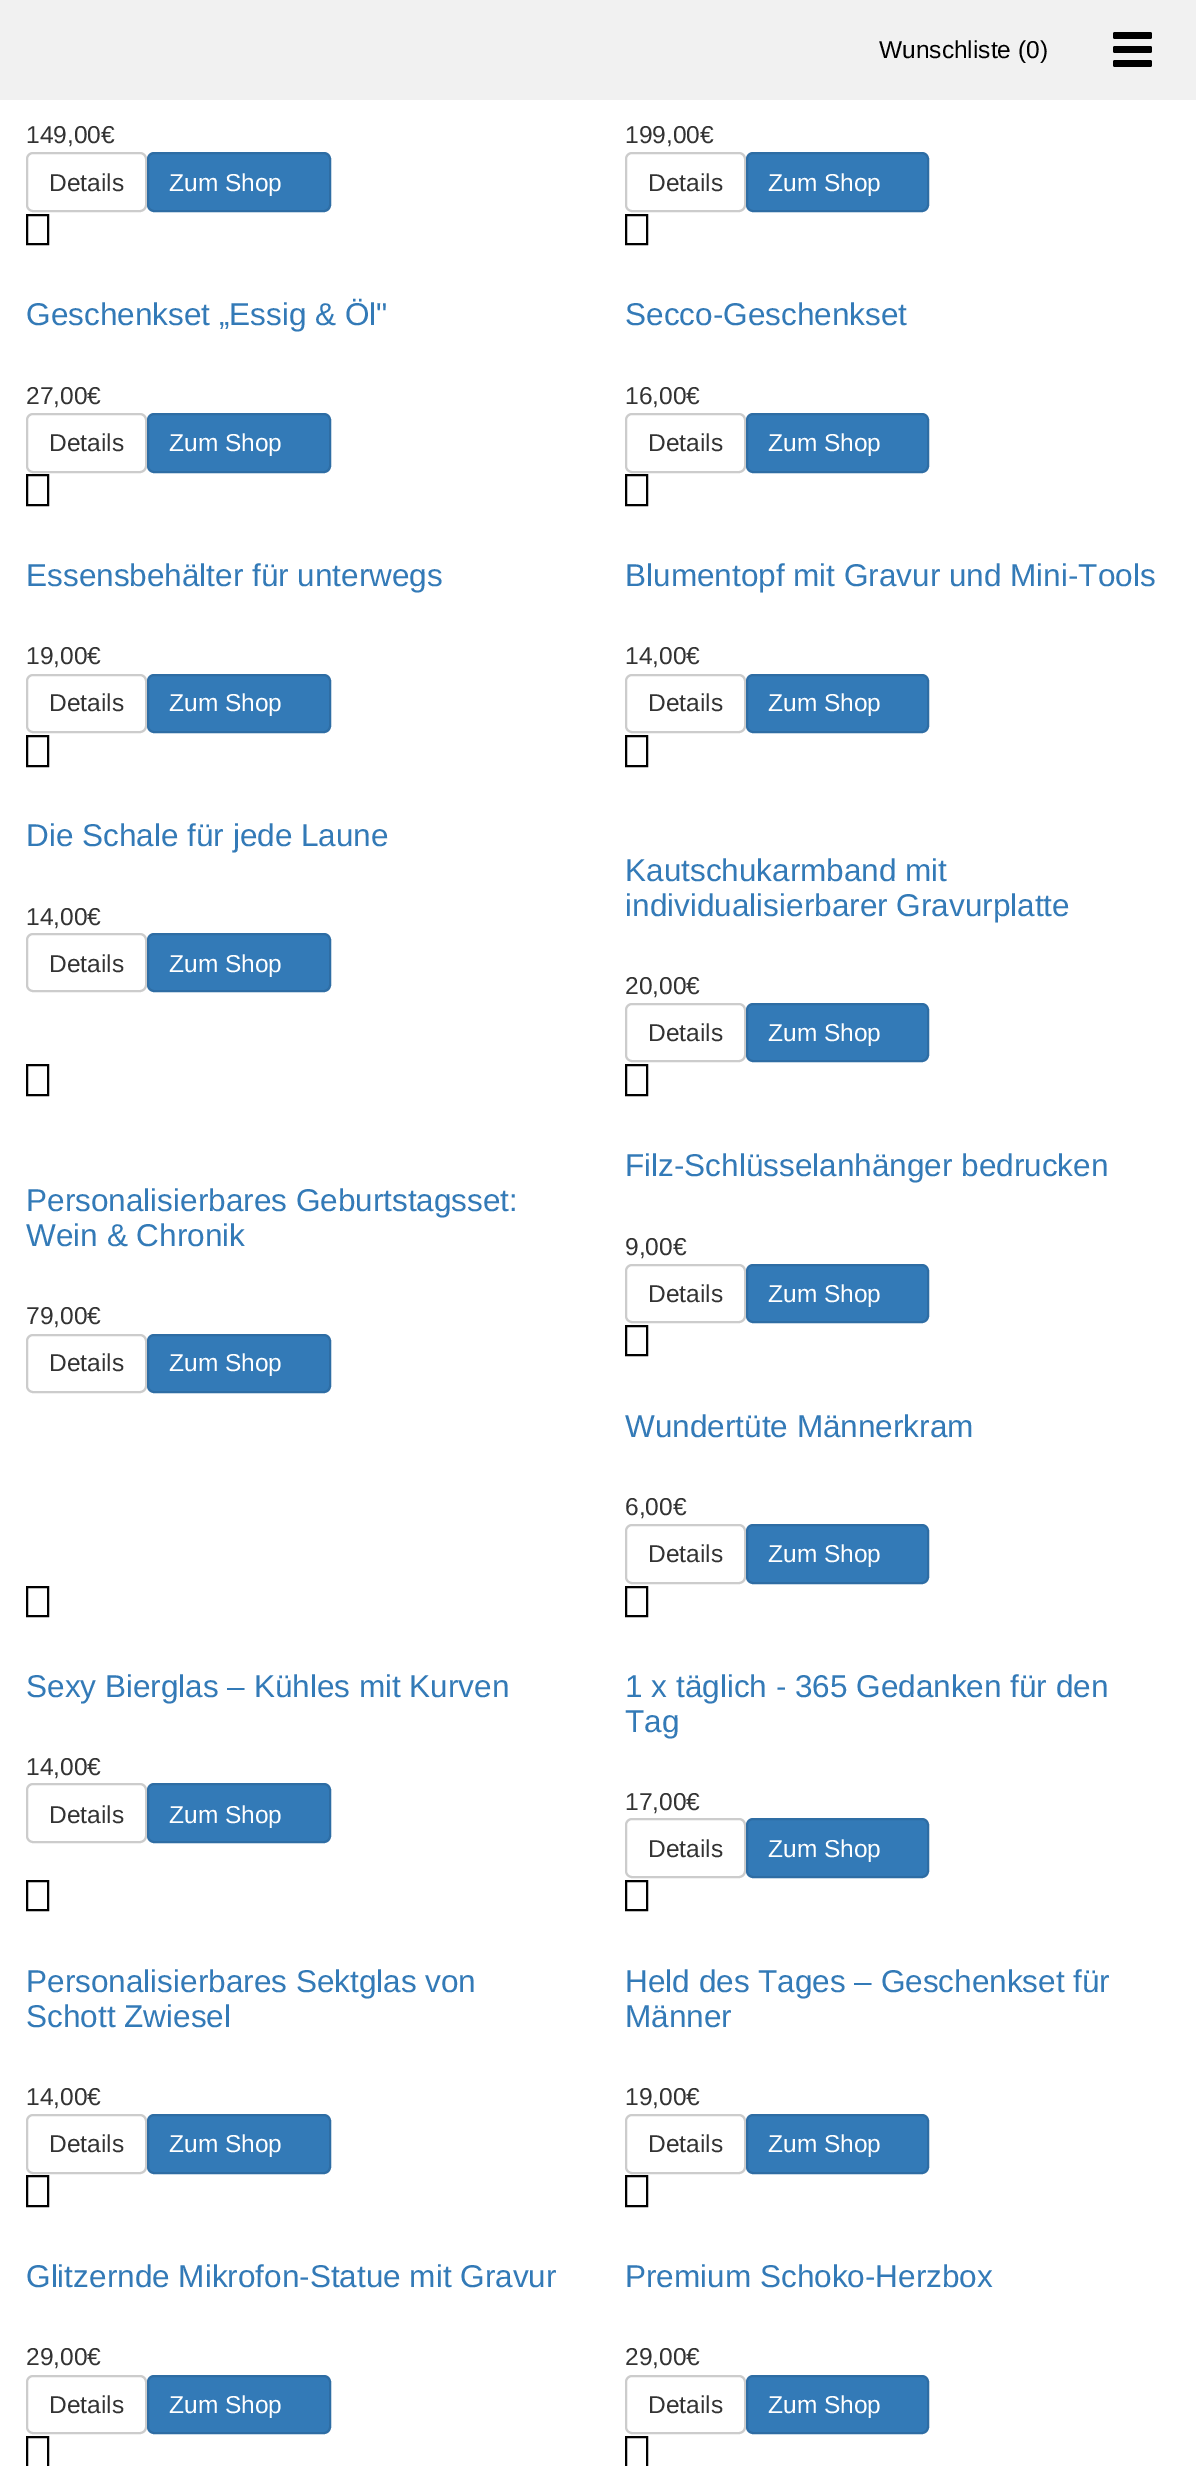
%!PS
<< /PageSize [1196 2466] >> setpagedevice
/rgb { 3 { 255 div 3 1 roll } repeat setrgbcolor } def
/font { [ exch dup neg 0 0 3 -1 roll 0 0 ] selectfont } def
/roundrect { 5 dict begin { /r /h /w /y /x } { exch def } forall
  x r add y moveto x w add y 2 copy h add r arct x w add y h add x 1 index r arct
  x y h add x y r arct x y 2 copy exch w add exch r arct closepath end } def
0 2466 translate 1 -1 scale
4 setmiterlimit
255 255 255 rgb
0 0 1196 2466 rectfill
241 241 241 rgb
0 0 1196 100 rectfill
0 0 0 rgb
1113 32 39 7 2 roundrect fill
1113 46 39 7 2 roundrect fill
1113 60 39 7 2 roundrect fill
204 204 204 rgb
2 setlinewidth
27 153 119 58 6 roundrect stroke
51 122 183 rgb
148 153 182 58 6 roundrect gsave fill grestore
46 109 164 rgb
stroke
204 204 204 rgb
626 153 119 58 6 roundrect stroke
51 122 183 rgb
747 153 181 58 6 roundrect gsave fill grestore
46 109 164 rgb
stroke
0 0 0 rgb
27 215 21 29 rectstroke
204 204 204 rgb
27 414 119 58 6 roundrect stroke
51 122 183 rgb
148 414 182 58 6 roundrect gsave fill grestore
46 109 164 rgb
stroke
0 0 0 rgb
626 215 21 29 rectstroke
204 204 204 rgb
626 414 119 58 6 roundrect stroke
51 122 183 rgb
747 414 181 58 6 roundrect gsave fill grestore
46 109 164 rgb
stroke
0 0 0 rgb
27 475 21 30 rectstroke
204 204 204 rgb
27 675 119 57 6 roundrect stroke
51 122 183 rgb
148 675 182 57 6 roundrect gsave fill grestore
46 109 164 rgb
stroke
0 0 0 rgb
626 475 21 30 rectstroke
204 204 204 rgb
626 675 119 57 6 roundrect stroke
51 122 183 rgb
747 675 181 57 6 roundrect gsave fill grestore
46 109 164 rgb
stroke
0 0 0 rgb
27 736 21 30 rectstroke
204 204 204 rgb
27 934 119 57 6 roundrect stroke
51 122 183 rgb
148 934 182 57 6 roundrect gsave fill grestore
46 109 164 rgb
stroke
0 0 0 rgb
626 736 21 30 rectstroke
204 204 204 rgb
626 1004 119 57 6 roundrect stroke
51 122 183 rgb
747 1004 181 57 6 roundrect gsave fill grestore
46 109 164 rgb
stroke
0 0 0 rgb
27 1065 21 30 rectstroke
204 204 204 rgb
27 1335 119 57 6 roundrect stroke
51 122 183 rgb
148 1335 182 57 6 roundrect gsave fill grestore
46 109 164 rgb
stroke
0 0 0 rgb
626 1065 21 30 rectstroke
204 204 204 rgb
626 1265 119 57 6 roundrect stroke
51 122 183 rgb
747 1265 181 57 6 roundrect gsave fill grestore
46 109 164 rgb
stroke
0 0 0 rgb
626 1326 21 29 rectstroke
204 204 204 rgb
626 1525 119 58 6 roundrect stroke
51 122 183 rgb
747 1525 181 58 6 roundrect gsave fill grestore
46 109 164 rgb
stroke
0 0 0 rgb
27 1587 21 29 rectstroke
204 204 204 rgb
27 1784 119 58 6 roundrect stroke
51 122 183 rgb
148 1784 182 58 6 roundrect gsave fill grestore
46 109 164 rgb
stroke
0 0 0 rgb
626 1587 21 29 rectstroke
204 204 204 rgb
626 1819 119 58 6 roundrect stroke
51 122 183 rgb
747 1819 181 58 6 roundrect gsave fill grestore
46 109 164 rgb
stroke
0 0 0 rgb
27 1881 21 29 rectstroke
204 204 204 rgb
27 2115 119 58 6 roundrect stroke
51 122 183 rgb
148 2115 182 58 6 roundrect gsave fill grestore
46 109 164 rgb
stroke
0 0 0 rgb
626 1881 21 29 rectstroke
204 204 204 rgb
626 2115 119 58 6 roundrect stroke
51 122 183 rgb
747 2115 181 58 6 roundrect gsave fill grestore
46 109 164 rgb
stroke
0 0 0 rgb
27 2176 21 30 rectstroke
204 204 204 rgb
27 2376 119 57 6 roundrect stroke
51 122 183 rgb
148 2376 182 57 6 roundrect gsave fill grestore
46 109 164 rgb
stroke
0 0 0 rgb
626 2176 21 30 rectstroke
204 204 204 rgb
626 2376 119 57 6 roundrect stroke
51 122 183 rgb
747 2376 181 57 6 roundrect gsave fill grestore
46 109 164 rgb
stroke
0 0 0 rgb
27 2437 21 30 rectstroke
626 2437 21 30 rectstroke
/LiberationSans-Regular 24.5 font
879 58 moveto (Wunschliste \(0\)) show
51 51 51 rgb
26 143 moveto (149,00€) show
49 191 moveto (Details) show
255 255 255 rgb
169 191 moveto (Zum Shop) show
51 51 51 rgb
625 143 moveto (199,00€) show
648 191 moveto (Details) show
255 255 255 rgb
768 191 moveto (Zum Shop) show
/LiberationSans-Regular 31.5 font
51 122 183 rgb
26 325 moveto (Geschenkset „Essig & Öl") show
/LiberationSans-Regular 24.5 font
51 51 51 rgb
26 404 moveto (27,00€) show
49 451 moveto (Details) show
255 255 255 rgb
169 451 moveto (Zum Shop) show
/LiberationSans-Regular 31.5 font
51 122 183 rgb
625 325 moveto (Secco-Geschenkset) show
/LiberationSans-Regular 24.5 font
51 51 51 rgb
625 404 moveto (16,00€) show
648 451 moveto (Details) show
255 255 255 rgb
768 451 moveto (Zum Shop) show
/LiberationSans-Regular 31.5 font
51 122 183 rgb
26 586 moveto (Essensbehälter für unterwegs) show
/LiberationSans-Regular 24.5 font
51 51 51 rgb
26 664 moveto (19,00€) show
49 711 moveto (Details) show
255 255 255 rgb
169 711 moveto (Zum Shop) show
/LiberationSans-Regular 31.5 font
51 122 183 rgb
625 586 moveto (Blumentopf mit Gravur und Mini-Tools) show
/LiberationSans-Regular 24.5 font
51 51 51 rgb
625 664 moveto (14,00€) show
648 711 moveto (Details) show
255 255 255 rgb
768 711 moveto (Zum Shop) show
/LiberationSans-Regular 31.5 font
51 122 183 rgb
26 846 moveto (Die Schale für jede Laune) show
/LiberationSans-Regular 24.5 font
51 51 51 rgb
26 925 moveto (14,00€) show
49 972 moveto (Details) show
255 255 255 rgb
169 972 moveto (Zum Shop) show
/LiberationSans-Regular 31.5 font
51 122 183 rgb
625 881 moveto (Kautschukarmband mit) show
625 916 moveto (individualisierbarer Gravurplatte) show
/LiberationSans-Regular 24.5 font
51 51 51 rgb
625 994 moveto (20,00€) show
648 1041 moveto (Details) show
255 255 255 rgb
768 1041 moveto (Zum Shop) show
/LiberationSans-Regular 31.5 font
51 122 183 rgb
26 1211 moveto (Personalisierbares Geburtstagsset:) show
26 1246 moveto (Wein & Chronik) show
/LiberationSans-Regular 24.5 font
51 51 51 rgb
26 1324 moveto (79,00€) show
49 1371 moveto (Details) show
255 255 255 rgb
169 1371 moveto (Zum Shop) show
/LiberationSans-Regular 31.5 font
51 122 183 rgb
625 1176 moveto (Filz-Schlüsselanhänger bedrucken) show
/LiberationSans-Regular 24.5 font
51 51 51 rgb
625 1255 moveto (9,00€) show
648 1302 moveto (Details) show
255 255 255 rgb
768 1302 moveto (Zum Shop) show
/LiberationSans-Regular 31.5 font
51 122 183 rgb
625 1437 moveto (Wundertüte Männerkram) show
/LiberationSans-Regular 24.5 font
51 51 51 rgb
625 1515 moveto (6,00€) show
648 1562 moveto (Details) show
255 255 255 rgb
768 1562 moveto (Zum Shop) show
/LiberationSans-Regular 31.5 font
51 122 183 rgb
26 1697 moveto (Sexy Bierglas – Kühles mit Kurven) show
/LiberationSans-Regular 24.5 font
51 51 51 rgb
26 1775 moveto (14,00€) show
49 1823 moveto (Details) show
255 255 255 rgb
169 1823 moveto (Zum Shop) show
/LiberationSans-Regular 31.5 font
51 122 183 rgb
625 1697 moveto (1 x täglich - 365 Gedanken für den) show
625 1732 moveto (Tag) show
/LiberationSans-Regular 24.5 font
51 51 51 rgb
625 1810 moveto (17,00€) show
648 1857 moveto (Details) show
255 255 255 rgb
768 1857 moveto (Zum Shop) show
/LiberationSans-Regular 31.5 font
51 122 183 rgb
26 1992 moveto (Personalisierbares Sektglas von) show
26 2027 moveto (Schott Zwiesel) show
/LiberationSans-Regular 24.5 font
51 51 51 rgb
26 2105 moveto (14,00€) show
49 2152 moveto (Details) show
255 255 255 rgb
169 2152 moveto (Zum Shop) show
/LiberationSans-Regular 31.5 font
51 122 183 rgb
625 1992 moveto (Held des Tages – Geschenkset für) show
625 2027 moveto (Männer) show
/LiberationSans-Regular 24.5 font
51 51 51 rgb
625 2105 moveto (19,00€) show
648 2152 moveto (Details) show
255 255 255 rgb
768 2152 moveto (Zum Shop) show
/LiberationSans-Regular 31.5 font
51 122 183 rgb
26 2287 moveto (Glitzernde Mikrofon-Statue mit Gravur) show
/LiberationSans-Regular 24.5 font
51 51 51 rgb
26 2365 moveto (29,00€) show
49 2413 moveto (Details) show
255 255 255 rgb
169 2413 moveto (Zum Shop) show
/LiberationSans-Regular 31.5 font
51 122 183 rgb
625 2287 moveto (Premium Schoko-Herzbox) show
/LiberationSans-Regular 24.5 font
51 51 51 rgb
625 2365 moveto (29,00€) show
648 2413 moveto (Details) show
255 255 255 rgb
768 2413 moveto (Zum Shop) show
showpage
